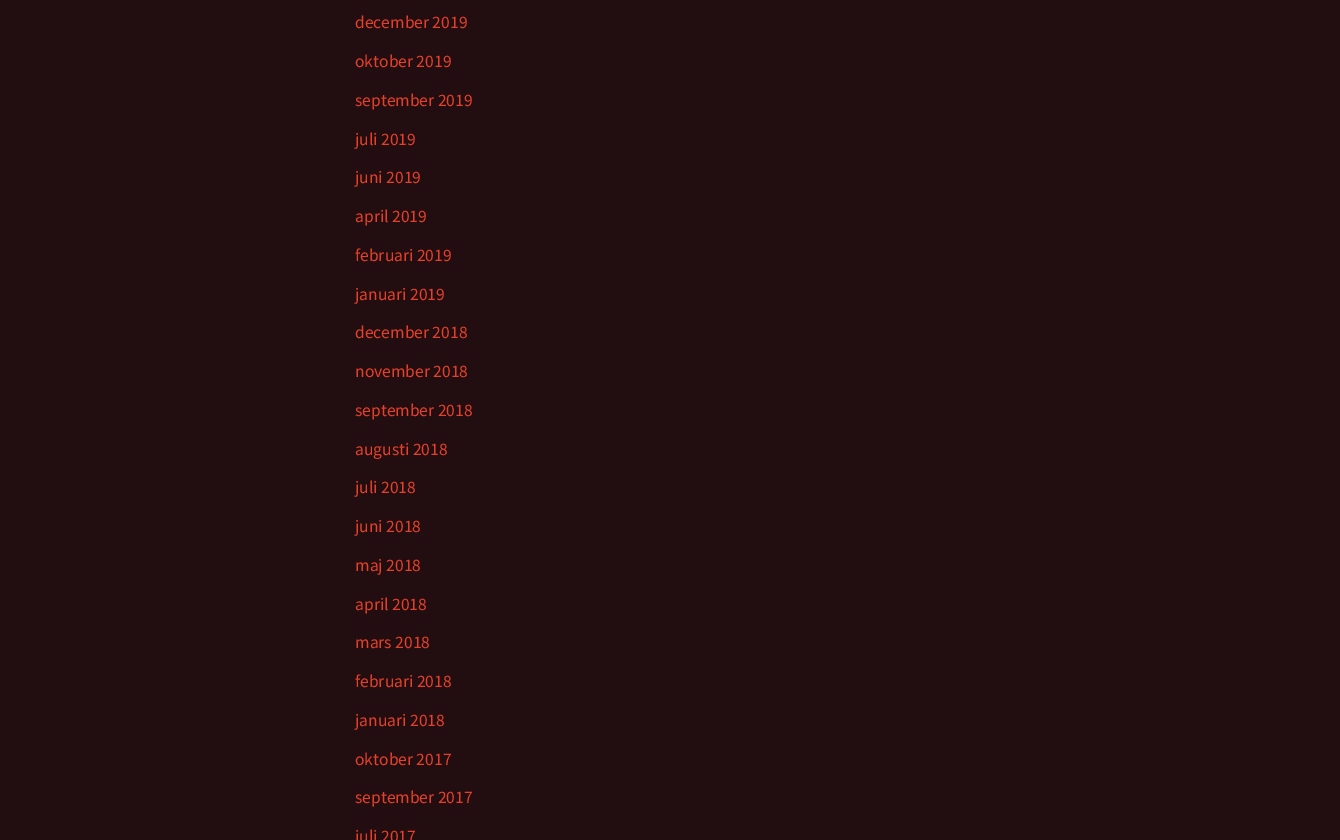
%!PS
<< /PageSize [1340 840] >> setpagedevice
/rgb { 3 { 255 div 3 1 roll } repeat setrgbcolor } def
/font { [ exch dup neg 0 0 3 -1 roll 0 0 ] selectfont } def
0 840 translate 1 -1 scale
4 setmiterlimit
34 14 16 rgb
0 0 1340 840 rectfill
/SourceSansPro-Regular 17.5 font
230 64 42 rgb
[
  [(december 2019) 355 28]
  [(oktober 2019) 355 67]
  [(september 2019) 355 106]
  [(juli 2019) 355 145]
  [(juni 2019) 355 183]
  [(april 2019) 355 222]
  [(februari 2019) 355 261]
  [(januari 2019) 355 300]
  [(december 2018) 355 338]
  [(november 2018) 355 377]
  [(september 2018) 355 416]
  [(augusti 2018) 355 455]
  [(juli 2018) 355 493]
  [(juni 2018) 355 532]
  [(maj 2018) 355 571]
  [(april 2018) 355 610]
  [(mars 2018) 355 648]
  [(februari 2018) 355 687]
  [(januari 2018) 355 726]
  [(oktober 2017) 355 765]
  [(september 2017) 355 803]
  [(juli 2017) 355 842]
] { aload pop moveto show } forall
showpage
